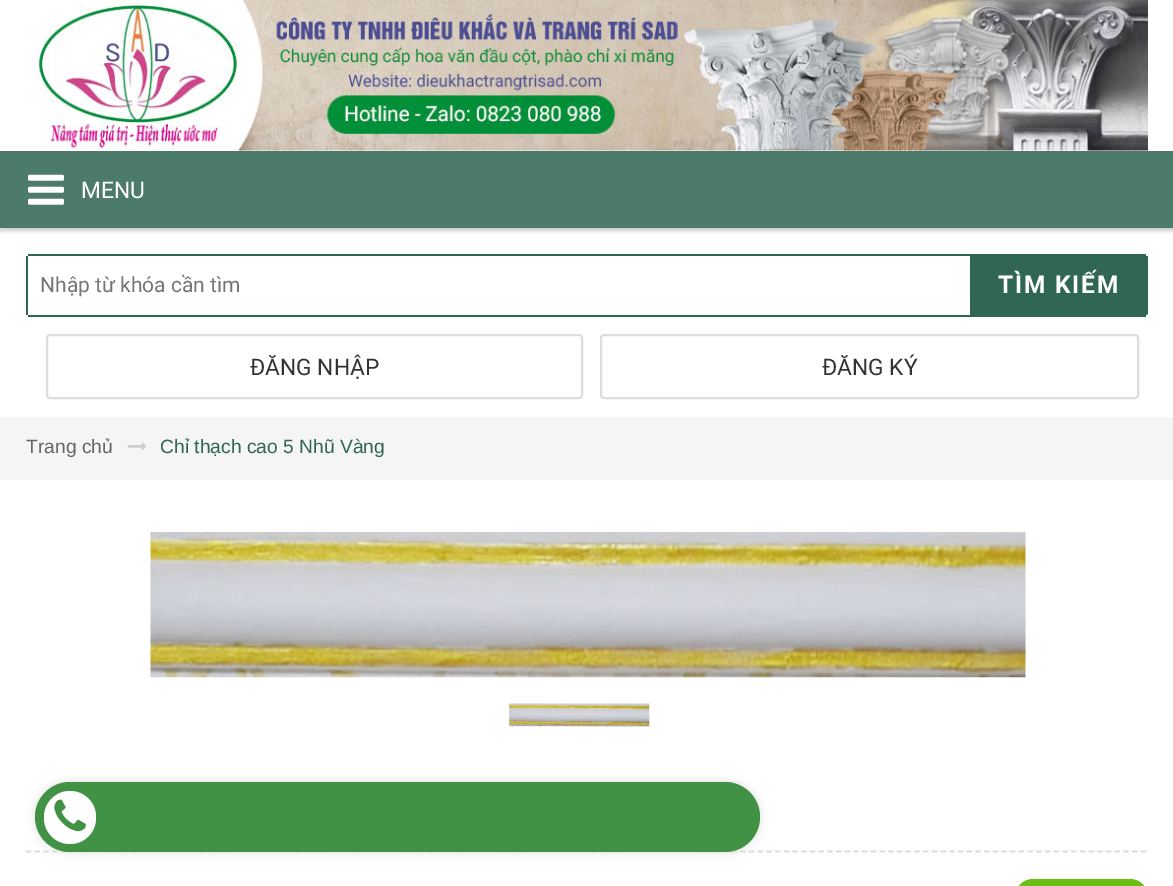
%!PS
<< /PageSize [1173 886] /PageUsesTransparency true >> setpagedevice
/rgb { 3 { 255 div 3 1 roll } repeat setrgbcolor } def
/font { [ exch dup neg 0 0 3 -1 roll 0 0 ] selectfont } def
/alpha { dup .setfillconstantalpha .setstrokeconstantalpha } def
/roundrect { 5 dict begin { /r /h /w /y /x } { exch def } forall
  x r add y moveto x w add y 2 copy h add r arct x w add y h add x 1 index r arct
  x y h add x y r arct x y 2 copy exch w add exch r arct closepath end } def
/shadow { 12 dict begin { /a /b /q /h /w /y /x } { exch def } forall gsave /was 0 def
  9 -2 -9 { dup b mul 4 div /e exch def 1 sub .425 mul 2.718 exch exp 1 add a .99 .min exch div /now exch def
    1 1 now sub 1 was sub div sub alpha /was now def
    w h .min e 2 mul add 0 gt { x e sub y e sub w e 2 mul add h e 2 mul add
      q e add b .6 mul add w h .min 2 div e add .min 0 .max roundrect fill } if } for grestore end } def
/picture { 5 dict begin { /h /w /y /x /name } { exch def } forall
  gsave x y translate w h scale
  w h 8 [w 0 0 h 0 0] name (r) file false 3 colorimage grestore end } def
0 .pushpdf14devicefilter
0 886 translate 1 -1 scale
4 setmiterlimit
255 255 255 rgb
0 0 1173 886 rectfill
(img/1.rgb) 34 0 1114 151 picture
0 0 0 rgb
0 154 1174 77 0 2 0.2 shadow
76 123 107 rgb
0 151 1173 77 rectfill
(img/2.rgb) 28 174 36 31 picture
[
  [28 254 1118 2 48 103 84]
  [28 315 1118 2 48 103 84]
  [26 256 2 59 48 103 84]
] { aload pop rgb rectfill } forall
970 315 moveto 970 256 lineto 1144 256 lineto 1146 256 1148 256 1148 257 curveto 1148 313 lineto 1148 314 1146 315 1144 315 curveto closepath fill
972 256 moveto 972 315 lineto 970 315 lineto 970 256 lineto 1144 256 lineto 1146 256 1148 256 1148 257 curveto 1148 313 lineto 1148 314 1147 315 1146 315 curveto 1146 256 lineto closepath fill
221 221 221 rgb
2 setlinewidth
47 335 535 63 3 roundrect stroke
601 335 537 63 3 roundrect stroke
245 245 245 rgb
0 417 1173 63 rectfill
(img/3.rgb) 127 442 20 9 picture
(img/4.rgb) 150 532 876 146 picture
(img/5.rgb) 509 703 141 24 picture
221 221 221 rgb
1.8 setlinewidth
[5.25 3.46] 0 setdash
26 851.5 moveto 1148 851.5 lineto stroke
109 190 20 rgb
1015 879 133 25 18 roundrect fill
221 221 221 rgb
35 782 725 70 35 4.5 1 shadow
66 146 69 rgb
35 782 725 70 35 roundrect fill
255 255 255 rgb
44 791 52 53 26 roundrect fill
(img/6.rgb) 54 799 32 33 picture
/Roboto-Regular 22.75 font
81 198 moveto (MENU) show
/Roboto-Regular 21 font
117 117 117 rgb
40 292 moveto (Nhập từ khóa cần tìm) show
/Roboto-Bold 24.5 font
255 255 255 rgb
998 293 moveto 1.75 0 (TÌM KIẾM) ashow
/Roboto-Regular 22.75 font
51 51 51 rgb
250 375 moveto (ĐĂNG NHẬP) show
822 375 moveto (ĐĂNG KÝ) show
/LiberationSans-Regular 19.25 font
102 102 102 rgb
26 453 moveto (Trang chủ) show
48 103 84 rgb
160 453 moveto (Chỉ thạch cao 5 Nhũ Vàng) show
.poppdf14devicefilter showpage
